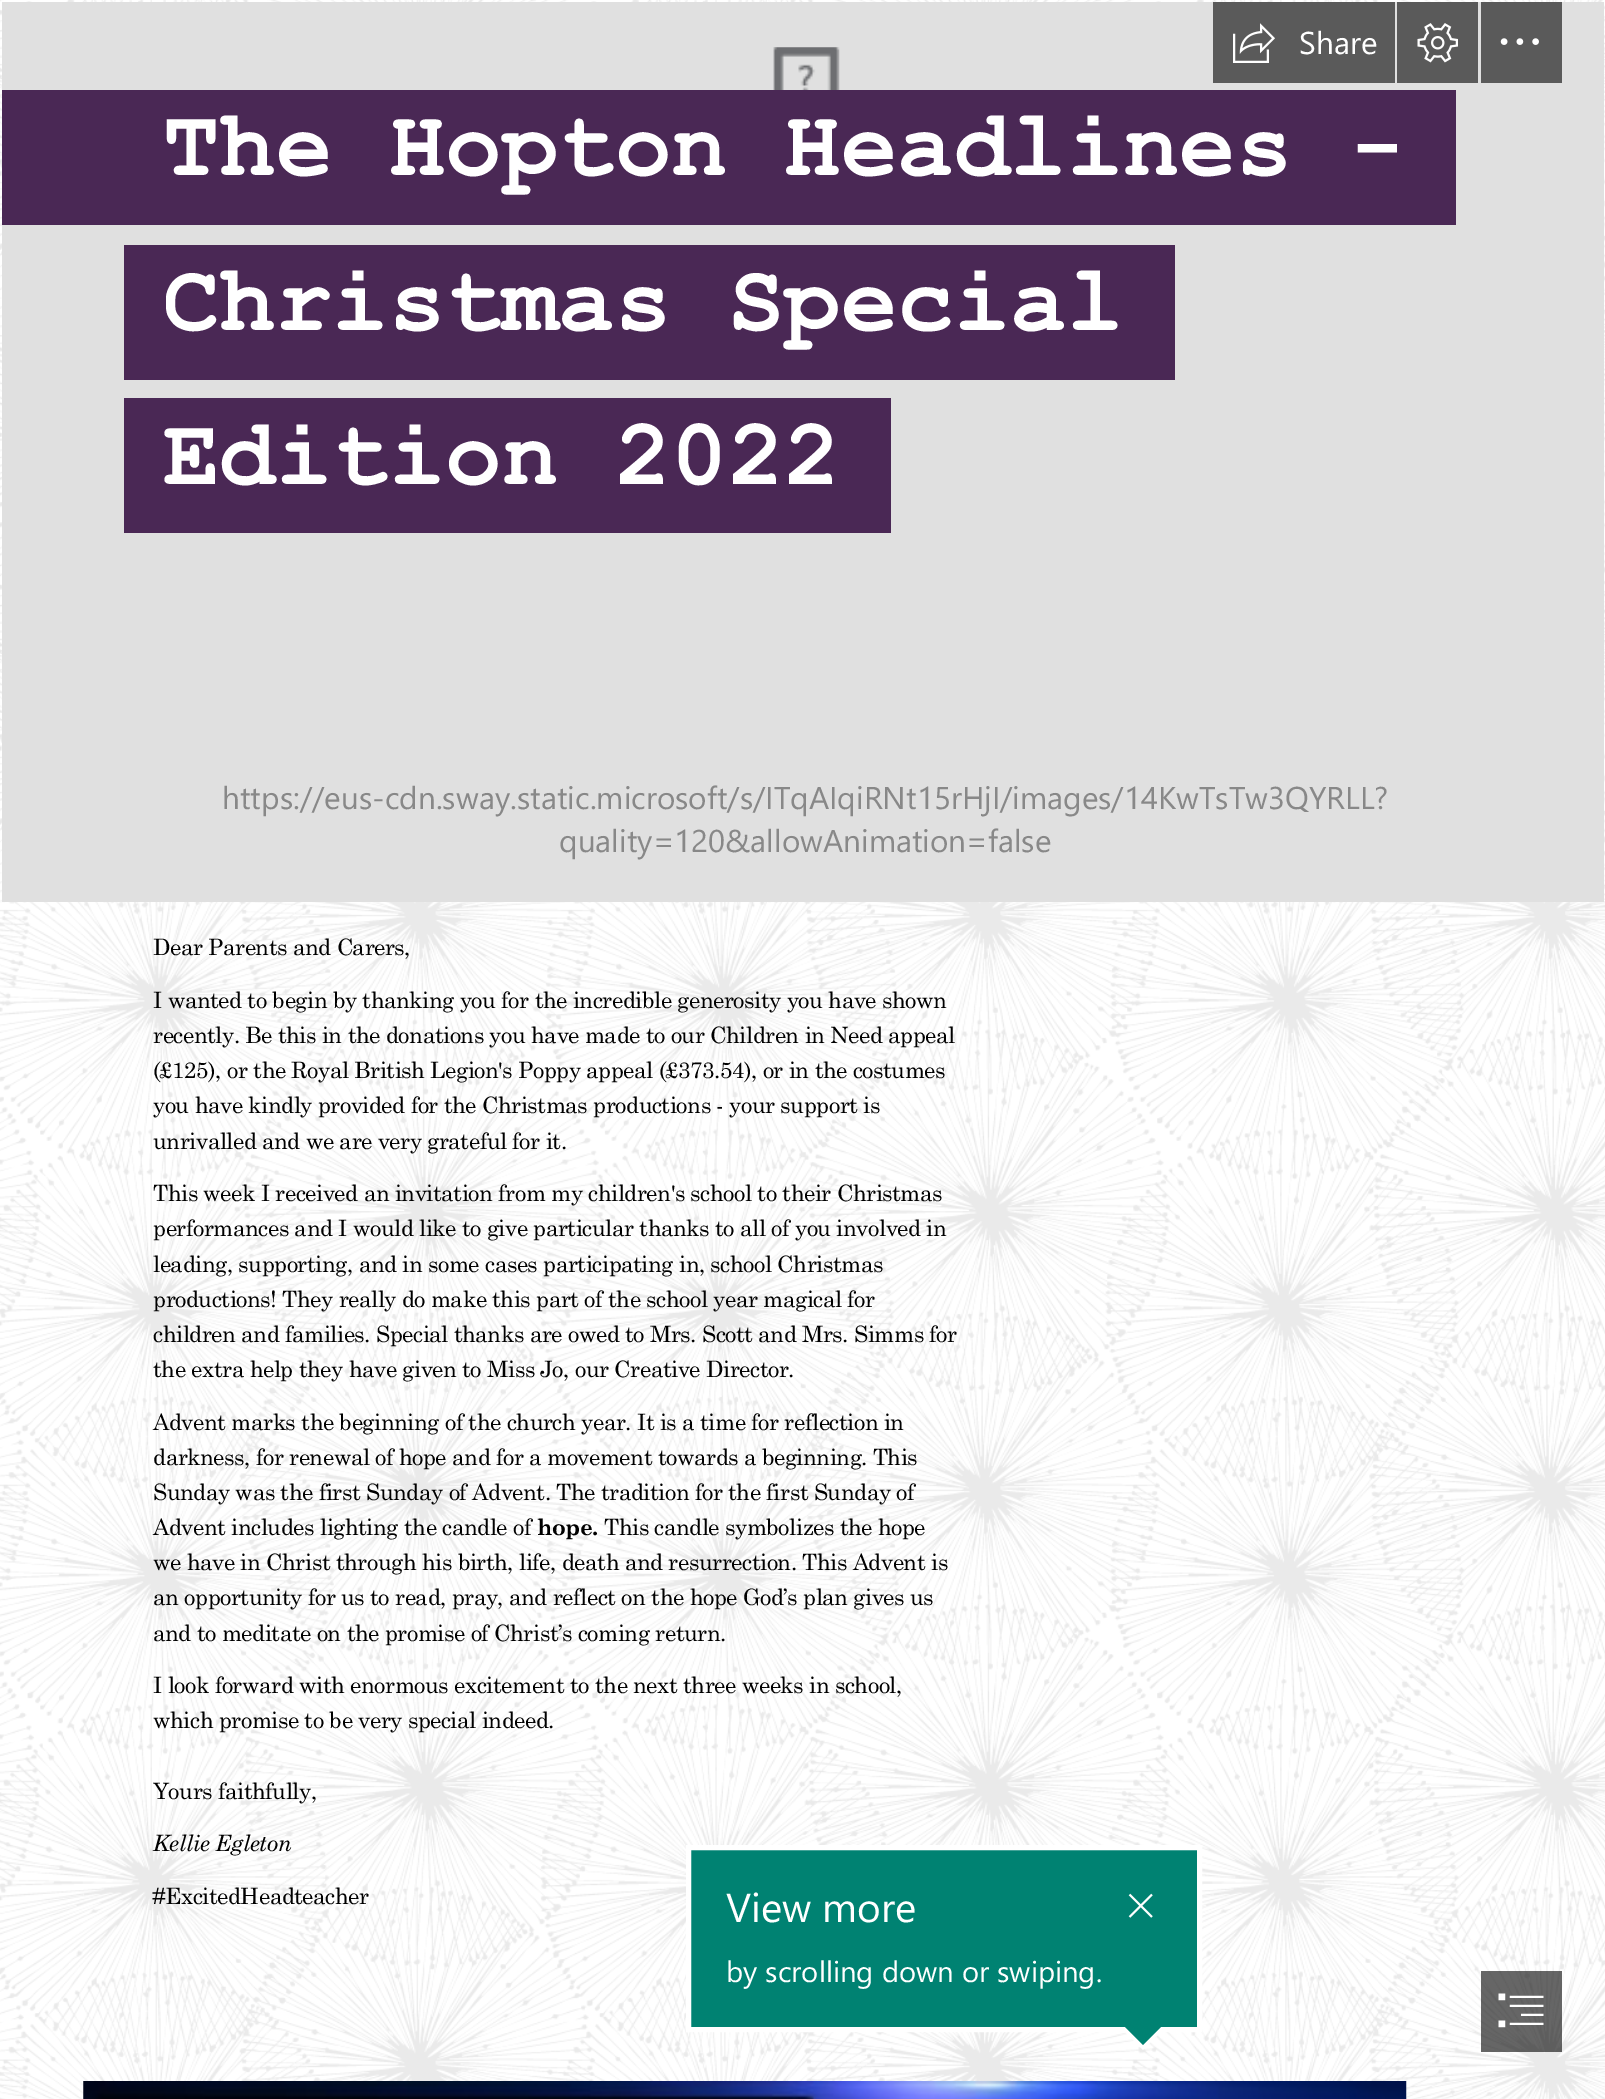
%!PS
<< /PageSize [1605 2099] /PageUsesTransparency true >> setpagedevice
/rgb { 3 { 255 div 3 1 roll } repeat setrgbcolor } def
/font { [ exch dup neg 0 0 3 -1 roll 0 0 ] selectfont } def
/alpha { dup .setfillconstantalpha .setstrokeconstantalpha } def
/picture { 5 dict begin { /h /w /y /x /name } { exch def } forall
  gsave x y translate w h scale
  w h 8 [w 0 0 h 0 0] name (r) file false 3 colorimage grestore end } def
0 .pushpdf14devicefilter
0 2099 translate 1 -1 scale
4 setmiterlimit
234 234 234 rgb
0 0 1605 2099 rectfill
(img/4.rgb) 0 0 1605 2099 picture
224 224 224 rgb
2 2 1602 900 rectfill
90 90 90 rgb
1213 2 182 81 rectfill
(img/1.rgb) 1233 23 42 40 picture
1397 2 81 81 rectfill
(img/2.rgb) 1417 23 41 40 picture
1481 2 81 81 rectfill
(img/3.rgb) 1500 38 39 7 picture
[
  [2 90 1454 135 74 40 85]
  [124 245 1051 135 74 40 85]
  [124 398 767 135 74 40 85]
] { aload pop rgb rectfill } forall
(img/5.rgb) 773 47 67 43 picture
(img/6.rgb) 83 2081 1324 18 picture
0 130 114 rgb
688.5 1847.5 moveto 1199.5 1847.5 lineto 1199.5 2029.5 lineto 688.5 2029.5 lineto closepath gsave fill grestore
255 255 255 rgb
5 setlinewidth
stroke
(img/7.rgb) 1128 1893 25 25 picture
1120 2027 moveto 1166 2027 lineto 1143 2050 lineto closepath fill
0 130 114 rgb
1125 2027 moveto 1161 2027 lineto 1143 2045 lineto closepath fill
0.6 alpha
0 0 0 rgb
1481 1971 81 81 rectfill
1 alpha
(img/8.rgb) 1498 1993 46 35 picture
/SegoeUI-Regular 31.5 font
255 255 255 rgb
1299 54 moveto (Share) show
/CourierNew-Bold 94.1 font
[
  [(The Hopton Headlines -) 163 175]
  [(Christmas Special) 163 330]
  [(Edition 2022) 163 484]
] { aload pop moveto show } forall
/SegoeUI-Regular 31.5 font
136 136 136 rgb
222 809 moveto (https://eus-cdn.sway.static.microsoft/s/ITqAIqiRNt15rHjI/images/14KwTsTw3QYRLL?) show
559 852 moveto (quality=120&allowAnimation=false) show
/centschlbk-Regular 22.6 font
0 0 0 rgb
153 955 moveto -0.48 0 (Dear Parents and Carers,) ashow
153 1008 moveto -0.48 0 (I wanted to begin by thanking you for the incredible generosity you have shown) ashow
153 1043 moveto -0.48 0 (recently. Be this in the donations you have made to our Children in Need appeal) ashow
153 1078 moveto -0.48 0 (\(£125\), or the Royal British Legion's Poppy appeal \(£373.54\), or in the costumes) ashow
153 1113 moveto -0.48 0 (you have kindly provided for the Christmas productions - your support is) ashow
153 1149 moveto -0.48 0 (unrivalled and we are very grateful for it.) ashow
153 1201 moveto -0.48 0 (This week I received an invitation from my children's school to their Christmas) ashow
153 1236 moveto -0.48 0 (performances and I would like to give particular thanks to all of you involved in) ashow
153 1272 moveto -0.48 0 (leading, supporting, and in some cases participating in, school Christmas) ashow
153 1307 moveto -0.48 0 (productions! They really do make this part of the school year magical for) ashow
153 1342 moveto -0.48 0 (children and families. Special thanks are owed to Mrs. Scott and Mrs. Simms for) ashow
153 1377 moveto -0.48 0 (the extra help they have given to Miss Jo, our Creative Director.) ashow
153 1430 moveto -0.48 0 (Advent marks the beginning of the church year. It is a time for reflection in) ashow
153 1465 moveto -0.48 0 (darkness, for renewal of hope and for a movement towards a beginning. This) ashow
153 1500 moveto -0.48 0 (Sunday was the first Sunday of Advent. The tradition for the first Sunday of) ashow
153 1535 moveto -0.48 0 (Advent includes lighting the candle of) ashow
/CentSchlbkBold-Bold 22.6 font
537 1535 moveto -0.48 0 (hope.) ashow
/centschlbk-Regular 22.6 font
604 1535 moveto -0.48 0 (This candle symbolizes the hope) ashow
153 1570 moveto -0.48 0 (we have in Christ through his birth, life, death and resurrection. This Advent is) ashow
153 1605 moveto -0.48 0 (an opportunity for us to read, pray, and reflect on the hope God’s plan gives us) ashow
153 1641 moveto -0.48 0 (and to meditate on the promise of Christ’s coming return.) ashow
153 1693 moveto -0.48 0 (I look forward with enormous excitement to the next three weeks in school,) ashow
153 1728 moveto -0.48 0 (which promise to be very special indeed.) ashow
153 1799 moveto -0.48 0 (Yours faithfully,) ashow
/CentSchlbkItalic-Italic 22.6 font
153 1851 moveto -0.48 0 (Kellie Egleton) ashow
/centschlbk-Regular 22.6 font
153 1904 moveto -0.48 0 (#ExcitedHeadteacher) ashow
/SegoeUI-Regular 40.5 font
255 255 255 rgb
726 1922 moveto (View more) show
/SegoeUI-Regular 29.25 font
726 1982 moveto (by scrolling down or swiping.) show
.poppdf14devicefilter showpage
